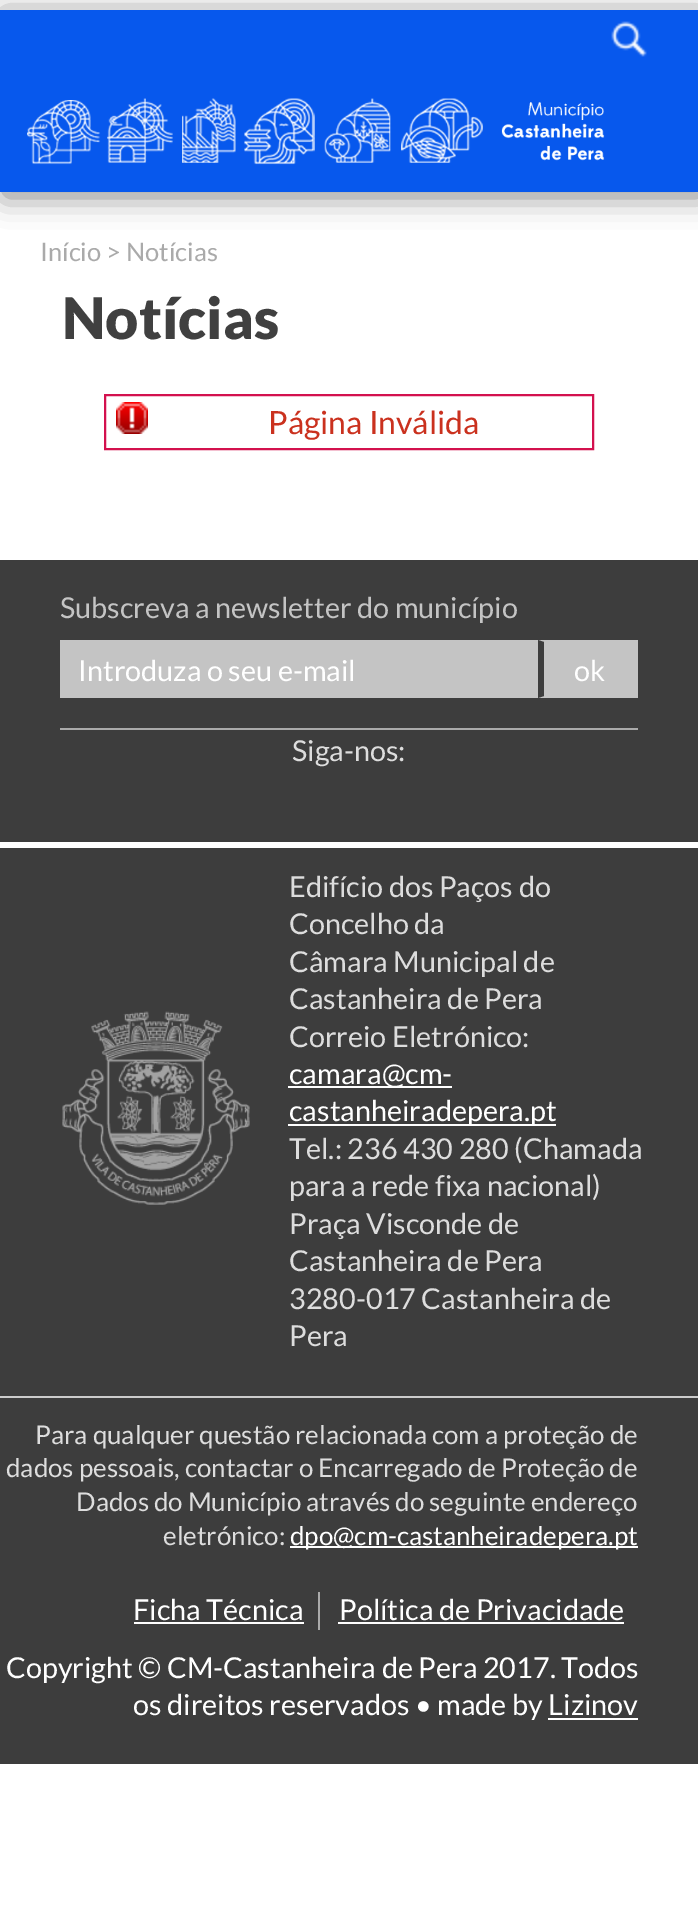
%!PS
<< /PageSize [698 1919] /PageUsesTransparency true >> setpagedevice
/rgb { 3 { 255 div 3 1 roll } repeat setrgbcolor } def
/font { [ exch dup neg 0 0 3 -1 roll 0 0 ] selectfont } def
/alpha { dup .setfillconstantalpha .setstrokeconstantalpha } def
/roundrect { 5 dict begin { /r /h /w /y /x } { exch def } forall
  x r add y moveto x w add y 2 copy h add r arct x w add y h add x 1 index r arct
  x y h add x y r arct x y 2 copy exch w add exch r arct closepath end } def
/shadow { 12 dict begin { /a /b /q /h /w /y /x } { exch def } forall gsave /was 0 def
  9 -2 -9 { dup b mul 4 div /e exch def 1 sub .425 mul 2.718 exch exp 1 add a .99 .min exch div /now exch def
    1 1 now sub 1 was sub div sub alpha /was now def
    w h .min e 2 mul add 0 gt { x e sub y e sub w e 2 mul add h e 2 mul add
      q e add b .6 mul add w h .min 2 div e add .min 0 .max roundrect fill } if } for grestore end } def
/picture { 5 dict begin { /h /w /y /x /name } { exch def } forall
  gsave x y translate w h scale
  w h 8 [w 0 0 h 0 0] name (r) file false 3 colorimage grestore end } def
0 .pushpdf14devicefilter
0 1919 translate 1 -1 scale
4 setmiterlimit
255 255 255 rgb
0 0 698 1919 rectfill
0 0 0 rgb
4 14 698 182 0 15 0.5 shadow
7 88 237 rgb
0 10 698 182 rectfill
(img/1.rgb) 611 21 36 36 picture
(img/2.rgb) 27 98 578 67 picture
(img/3.rgb) 116 402 32 32 picture
211 17 78 rgb
2 setlinewidth
105 395 488 54 rectstroke
[
  [0 560 698 1204 61 61 61]
  [0 842 698 6 255 255 255]
  [60 640 484 58 196 196 196]
  [544 642 92 54 196 196 196]
] { aload pop rgb rectfill } forall
538 640 moveto 638 640 lineto 636 642 lineto 544 642 lineto closepath fill
636 640 2 58 rectfill
638 698 moveto 538 698 lineto 544 696 lineto 636 696 lineto closepath fill
61 61 61 rgb
538 698 moveto 538 640 lineto 544 642 lineto 544 696 lineto closepath fill
170 170 170 rgb
60 728 578 2 rectfill
(img/4.rgb) 62 1011 188 194 picture
[
  [288 1086 164 2 255 255 255]
  [288 1124 268 2 255 255 255]
  [0 1396 698 2 204 204 204]
  [290 1546 348 2 255 255 255]
  [318 1592 2 38 170 170 170]
  [134 1622 170 2 255 255 255]
  [338 1622 286 2 255 255 255]
  [548 1718 90 2 255 255 255]
] { aload pop rgb rectfill } forall
/Lato-Regular 25.5 font
170 170 170 rgb
40 261 moveto (Início > Notícias) show
/Lato-Black 57.5 font
64 64 64 rgb
62 339 moveto (Notícias) show
/Lato-Regular 32 font
202 49 30 rgb
268 434 moveto (Página Inválida) show
/Lato-Regular 28.8 font
196 196 196 rgb
60 618 moveto (Subscreva a newsletter do município) show
255 255 255 rgb
78 681 moveto (Introduza o seu e-mail) show
574 681 moveto (ok) show
221 221 221 rgb
[
  [(Siga-nos:) 292 761]
  [(Edifício dos Paços do) 289 897]
  [(Concelho da) 289 934]
  [(Câmara Municipal de) 289 972]
  [(Castanheira de Pera) 289 1009]
  [(Correio Eletrónico:) 289 1047]
] { aload pop moveto show } forall
255 255 255 rgb
289 1084 moveto (camara@cm-) show
289 1121 moveto (castanheiradepera.pt) show
221 221 221 rgb
[
  [(Tel.: 236 430 280 \(Chamada) 289 1159]
  [(para a rede fixa nacional\)) 289 1196]
  [(Praça Visconde de) 289 1234]
  [(Castanheira de Pera) 289 1271]
  [(3280-017 Castanheira de) 289 1309]
  [(Pera) 289 1346]
] { aload pop moveto show } forall
/Lato-Regular 25.9 font
[
  [(Para qualquer questão relacionada com a proteção de) 35 1444]
  [(dados pessoais, contactar o Encarregado de Proteção de) 6 1477]
  [(Dados do Município através do seguinte endereço) 76 1511]
  [(eletrónico:) 163 1545]
] { aload pop moveto show } forall
255 255 255 rgb
290 1545 moveto (dpo@cm-castanheiradepera.pt) show
/Lato-Regular 28.8 font
[
  [(Ficha Técnica) 133 1620]
  [(Política de Privacidade) 339 1620]
  [(Copyright © CM-Castanheira de Pera 2017. Todos) 6 1678]
  [(os direitos reservados • made by Lizinov) 133 1715]
] { aload pop moveto show } forall
.poppdf14devicefilter showpage
